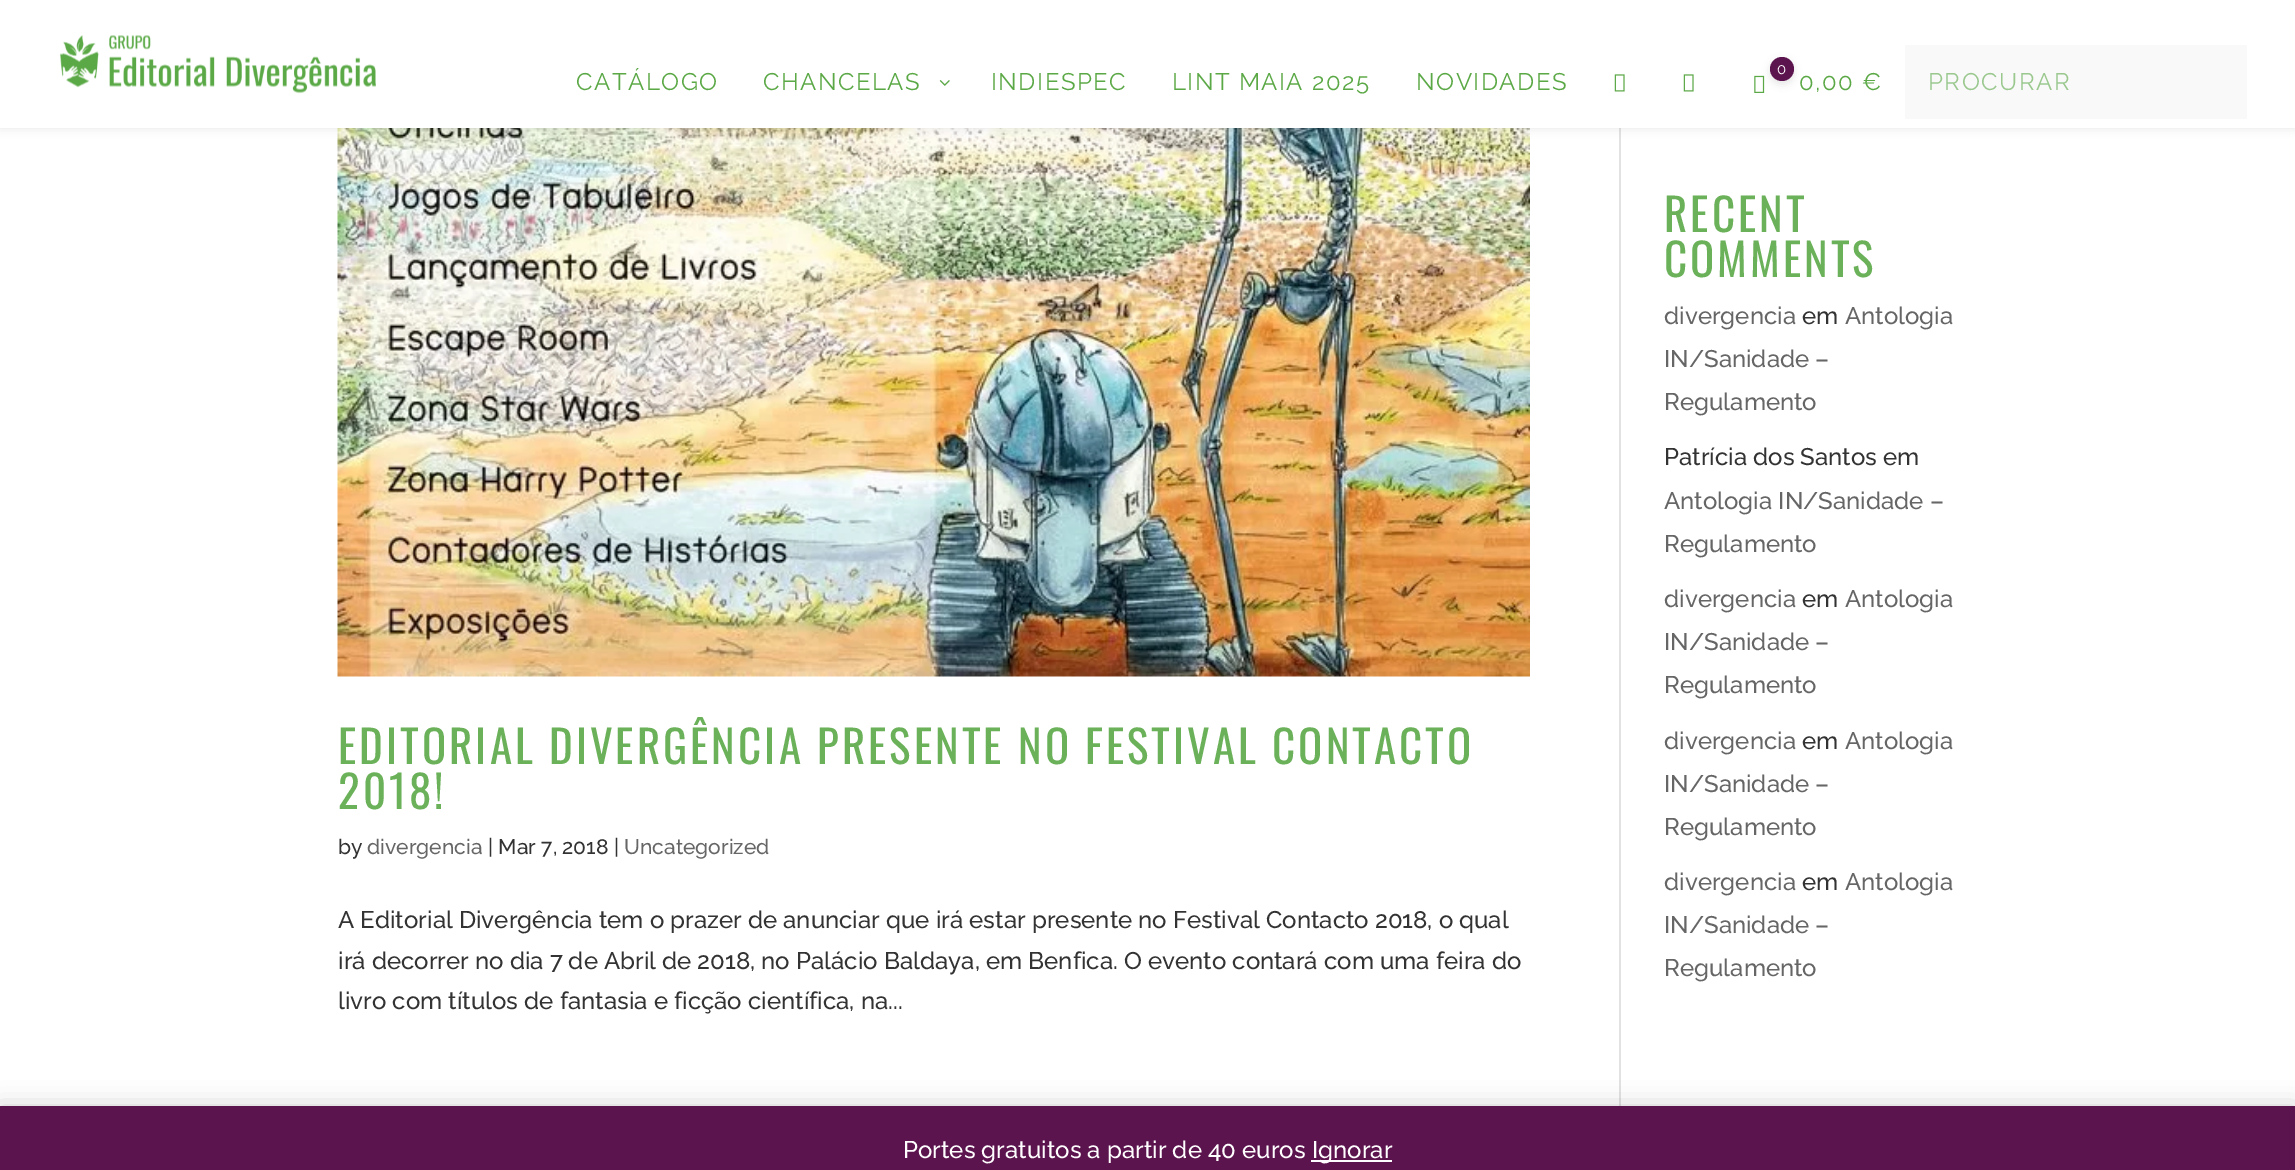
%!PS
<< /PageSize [2295 1170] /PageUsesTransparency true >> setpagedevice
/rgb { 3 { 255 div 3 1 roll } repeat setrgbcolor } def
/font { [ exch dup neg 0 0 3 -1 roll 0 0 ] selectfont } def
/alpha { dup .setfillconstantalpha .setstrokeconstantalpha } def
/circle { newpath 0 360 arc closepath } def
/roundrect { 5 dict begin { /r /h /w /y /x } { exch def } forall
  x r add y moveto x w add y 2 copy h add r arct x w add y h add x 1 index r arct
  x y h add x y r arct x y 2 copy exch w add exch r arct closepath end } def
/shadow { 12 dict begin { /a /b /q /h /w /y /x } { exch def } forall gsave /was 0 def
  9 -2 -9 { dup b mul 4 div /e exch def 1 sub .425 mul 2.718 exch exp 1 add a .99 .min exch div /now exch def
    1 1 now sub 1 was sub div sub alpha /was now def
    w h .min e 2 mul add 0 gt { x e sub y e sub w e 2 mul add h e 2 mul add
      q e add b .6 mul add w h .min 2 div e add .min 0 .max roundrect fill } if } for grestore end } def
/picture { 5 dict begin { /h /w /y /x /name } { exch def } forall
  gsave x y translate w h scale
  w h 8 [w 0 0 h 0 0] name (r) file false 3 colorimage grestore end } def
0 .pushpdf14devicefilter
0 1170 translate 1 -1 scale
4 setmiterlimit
255 255 255 rgb
0 0 2295 1170 rectfill
226 226 226 rgb
1619 128 2 978 rectfill
(img/5.rgb) 337 128 1193 549 picture
0 0 0 rgb
0 0 2295 128 0 5 0.1 shadow
255 255 255 rgb
0 0 2295 128 rectfill
(img/1.rgb) 60 35 316 59 picture
(img/2.rgb) 939 80 11 6 picture
(img/3.rgb) 1614 74 11 18 picture
(img/3.rgb) 1683 74 11 18 picture
(img/4.rgb) 1754 75 11 18 picture
0 0 0 rgb
1770 60 24 24 12 4 0.1 shadow
92 20 78 rgb
1782 69 12 circle fill
249 249 249 rgb
1905 45 342 74 rectfill
0 0 0 rgb
0 1107 2295 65 0 12 0.2 shadow
92 20 78 rgb
0 1106 2295 64 rectfill
252 251 254 rgb
1311 1160 81 2 rectfill
/Raleway-Regular 24 font
91 168 70 rgb
576 90 moveto 1.5 0 (CATÁLOGO) ashow
763 90 moveto 1.5 0 (CHANCELAS) ashow
991 90 moveto 1.5 0 (INDIESPEC) ashow
1172 90 moveto 1.5 0 (LINT MAIA 2025) ashow
1416 90 moveto 1.5 0 (NOVIDADES) ashow
/Raleway-Regular 15 font
255 255 255 rgb
1777 74 moveto 1.5 0 (0) ashow
/Raleway-Regular 24 font
91 168 70 rgb
1799 90 moveto 1.5 0 (0,00 €) ashow
154 200 142 rgb
1928 90 moveto 1.5 0 (PROCURAR) ashow
/Oswald-Regular 45 font
107 177 89 rgb
338 764 moveto 3 0 (EDITORIAL DIVERGÊNCIA PRESENTE NO FESTIVAL CONTACTO) ashow
338 809 moveto 3 0 (2018!) ashow
/Raleway-Medium 21 font
51 51 51 rgb
338 854 moveto (by) show
102 102 102 rgb
367 854 moveto (divergencia) show
51 51 51 rgb
488 854 moveto (| Mar 7, 2018 |) show
102 102 102 rgb
624 854 moveto (Uncategorized) show
/Raleway-Medium 24 font
51 51 51 rgb
[
  [(A Editorial Divergência tem o prazer de anunciar que irá estar presente no Festival Contacto 2018, o qual) 338 928]
  [(irá decorrer no dia 7 de Abril de 2018, no Palácio Baldaya, em Benfica. O evento contará com uma feira do) 338 969]
  [(livro com títulos de fantasia e ficção científica, na...) 338 1009]
] { aload pop moveto show } forall
/Oswald-Regular 45 font
107 177 89 rgb
1664 232 moveto 3 0 (RECENT) ashow
1664 277 moveto 3 0 (COMMENTS) ashow
/Raleway-Medium 24 font
102 102 102 rgb
1664 324 moveto (divergencia) show
51 51 51 rgb
1802 324 moveto (em) show
102 102 102 rgb
[
  [(Antologia) 1845 324]
  [(IN/Sanidade –) 1664 367]
  [(Regulamento) 1664 410]
] { aload pop moveto show } forall
51 51 51 rgb
1664 465 moveto (Patrícia dos Santos em) show
102 102 102 rgb
[
  [(Antologia IN/Sanidade –) 1664 509]
  [(Regulamento) 1664 552]
  [(divergencia) 1664 607]
] { aload pop moveto show } forall
51 51 51 rgb
1802 607 moveto (em) show
102 102 102 rgb
[
  [(Antologia) 1845 607]
  [(IN/Sanidade –) 1664 650]
  [(Regulamento) 1664 693]
  [(divergencia) 1664 749]
] { aload pop moveto show } forall
51 51 51 rgb
1802 749 moveto (em) show
102 102 102 rgb
[
  [(Antologia) 1845 749]
  [(IN/Sanidade –) 1664 792]
  [(Regulamento) 1664 835]
  [(divergencia) 1664 890]
] { aload pop moveto show } forall
51 51 51 rgb
1802 890 moveto (em) show
102 102 102 rgb
[
  [(Antologia) 1845 890]
  [(IN/Sanidade –) 1664 933]
  [(Regulamento) 1664 976]
] { aload pop moveto show } forall
255 255 255 rgb
903 1158 moveto (Portes gratuitos a partir de 40 euros) show
1312 1158 moveto (Ignorar) show
.poppdf14devicefilter showpage
